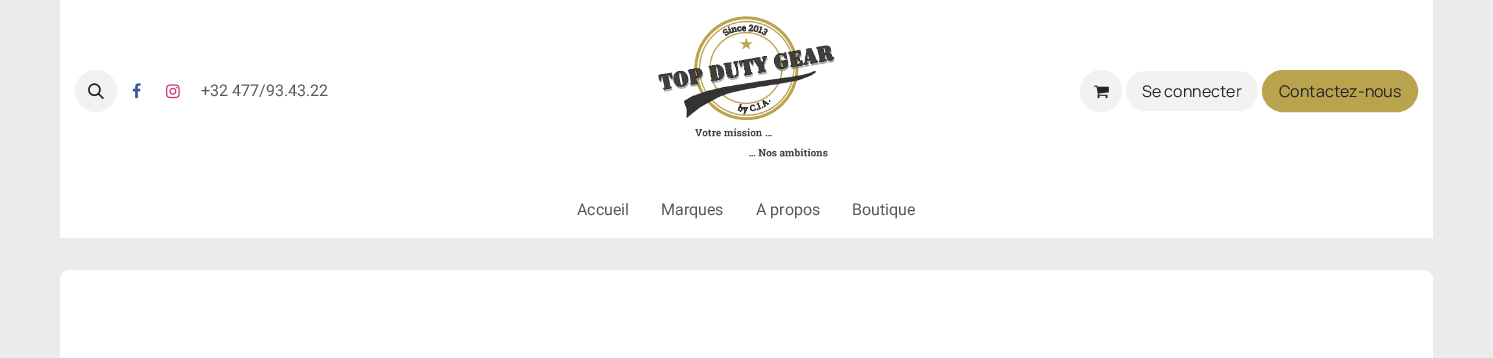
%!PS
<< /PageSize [1493 358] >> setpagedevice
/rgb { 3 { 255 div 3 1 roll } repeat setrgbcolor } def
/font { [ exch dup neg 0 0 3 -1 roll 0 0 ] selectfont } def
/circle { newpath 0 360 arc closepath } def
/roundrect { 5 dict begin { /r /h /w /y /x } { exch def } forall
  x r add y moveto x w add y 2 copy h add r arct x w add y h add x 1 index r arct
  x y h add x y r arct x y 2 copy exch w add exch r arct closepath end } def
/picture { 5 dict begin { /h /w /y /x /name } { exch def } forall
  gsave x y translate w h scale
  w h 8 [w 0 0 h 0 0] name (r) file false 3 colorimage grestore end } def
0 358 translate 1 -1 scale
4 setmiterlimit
235 235 235 rgb
0 0 1493 358 rectfill
255 255 255 rgb
60 0 1373 238 rectfill
242 242 242 rgb
96 91 21 circle fill
(img/1.rgb) 88 83 16 17 picture
(img/2.rgb) 132 83 9 16 picture
(img/3.rgb) 166 84 14 15 picture
(img/4.rgb) 658 16 177 141 picture
1101 91 21 circle fill
(img/5.rgb) 1094 85 15 14 picture
1126 71 132 40 20 roundrect fill
185 163 77 rgb
1262.5 70.5 155 41 20.5 roundrect gsave fill grestore
stroke
255 255 255 rgb
60 270 1373 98 10 roundrect fill
/Roboto-Regular 16 font
89 89 89 rgb
201 96 moveto (+32 477/93.43.22) show
/Manrope-Regular 16 font
33 37 41 rgb
1142 97 moveto (Se connecter) show
1279 97 moveto (Contactez-nous) show
/Roboto-Regular 16 font
89 89 89 rgb
[
  [(Accueil) 577 215]
  [(Marques) 661 215]
  [(A propos) 756 215]
  [(Boutique) 852 215]
] { aload pop moveto show } forall
showpage
